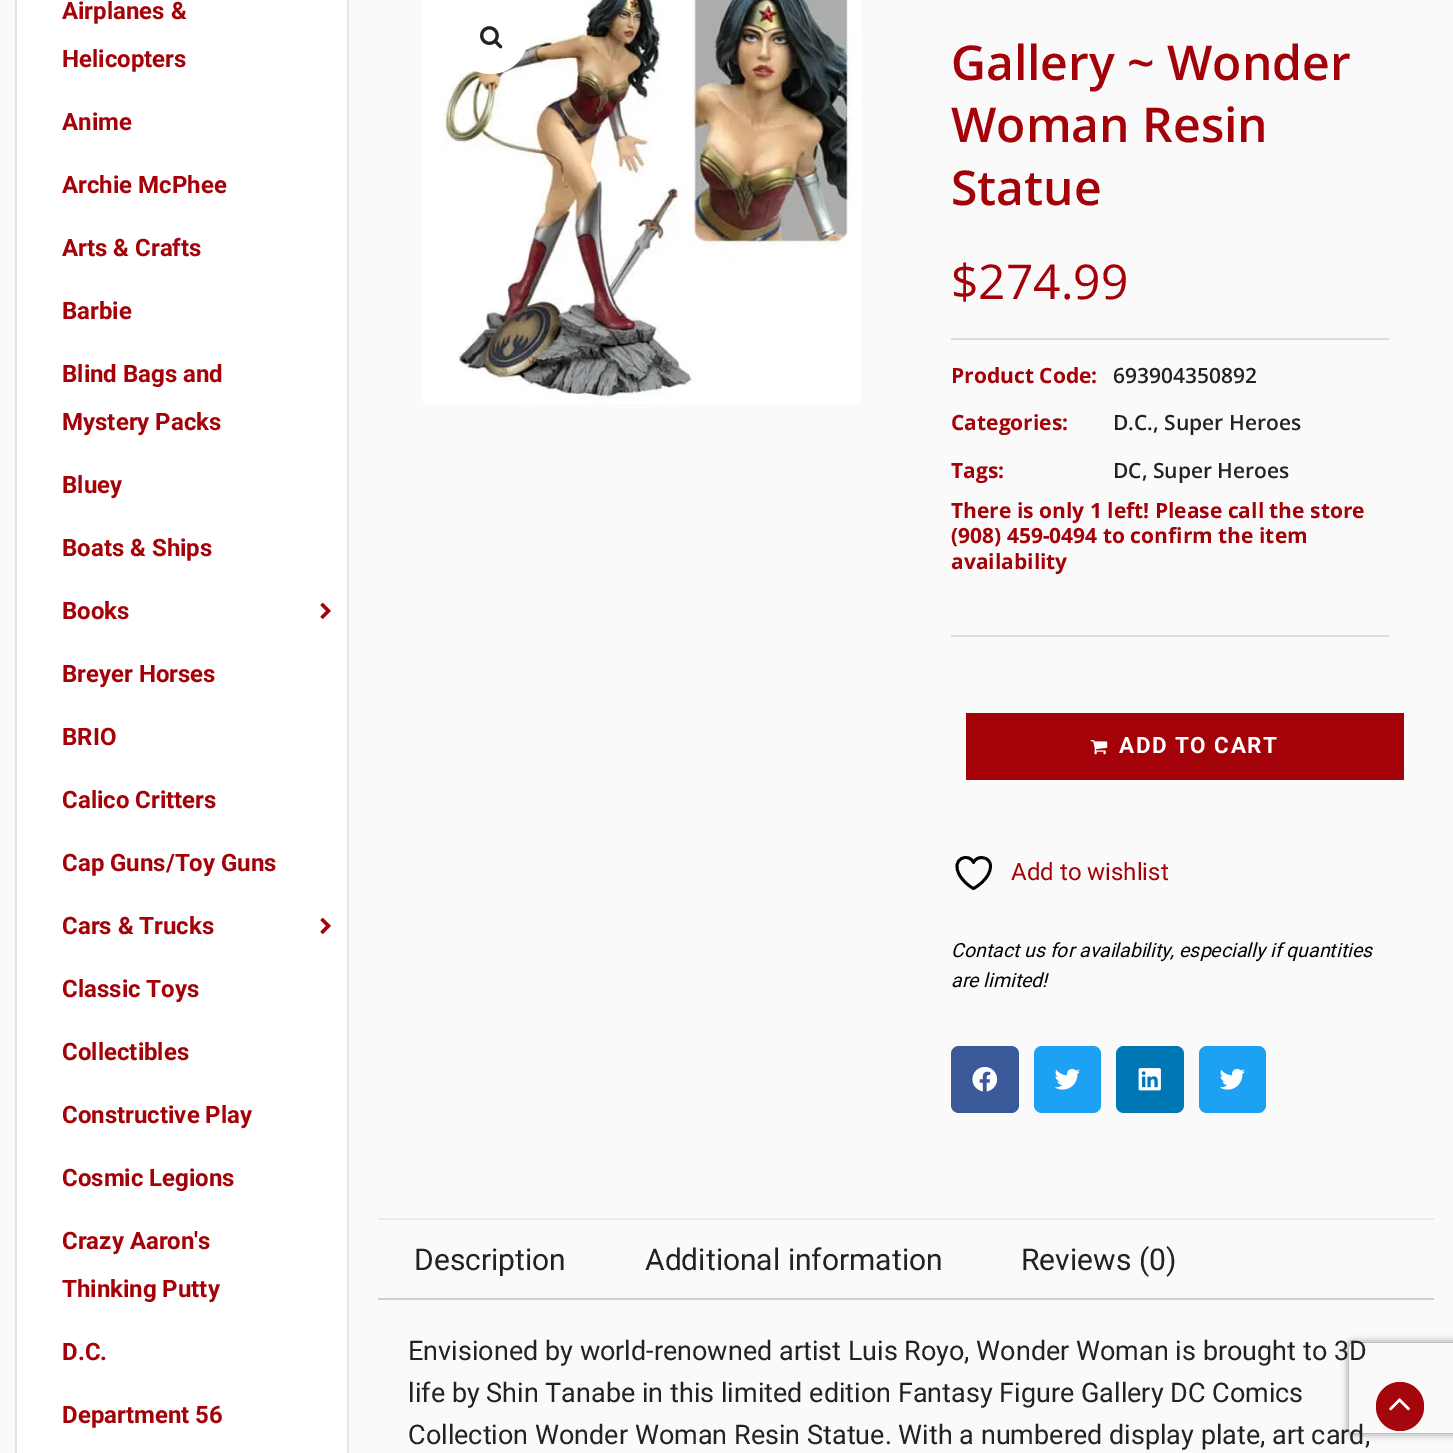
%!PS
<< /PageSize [1453 1453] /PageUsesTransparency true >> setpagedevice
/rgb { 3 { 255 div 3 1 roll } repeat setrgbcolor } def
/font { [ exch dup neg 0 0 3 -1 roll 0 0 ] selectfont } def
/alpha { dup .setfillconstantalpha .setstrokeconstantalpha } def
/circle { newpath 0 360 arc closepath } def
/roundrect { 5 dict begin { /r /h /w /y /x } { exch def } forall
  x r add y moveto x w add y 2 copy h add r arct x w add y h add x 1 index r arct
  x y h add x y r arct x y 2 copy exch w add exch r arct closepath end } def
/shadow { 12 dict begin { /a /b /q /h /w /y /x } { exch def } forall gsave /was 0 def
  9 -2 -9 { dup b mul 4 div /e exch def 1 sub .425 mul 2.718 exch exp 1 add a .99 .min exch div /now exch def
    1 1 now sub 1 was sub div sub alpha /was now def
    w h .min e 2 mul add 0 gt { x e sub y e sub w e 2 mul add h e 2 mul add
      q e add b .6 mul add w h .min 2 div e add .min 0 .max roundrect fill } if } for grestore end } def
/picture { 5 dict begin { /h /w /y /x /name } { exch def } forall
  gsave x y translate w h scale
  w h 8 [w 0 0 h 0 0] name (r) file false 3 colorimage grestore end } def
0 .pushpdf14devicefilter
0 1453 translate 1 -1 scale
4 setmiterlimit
250 250 250 rgb
0 0 1453 1453 rectfill
[
  [17 0 330 1453 255 255 255]
  [347 0 2 1453 228 228 228]
  [15 0 2 1453 228 228 228]
] { aload pop rgb rectfill } forall
(img/1.rgb) 320 602 11 17 picture
(img/1.rgb) 320 917 11 17 picture
(img/3.rgb) 423 0 438 404 picture
255 255 255 rgb
490.5 36.5 37.5 circle fill
(img/2.rgb) 480 26 23 23 picture
[
  [951 338 438 2 221 221 221]
  [951 635 438 2 221 221 221]
  [966 713 438 67 163 2 8]
] { aload pop rgb rectfill } forall
(img/4.rgb) 1090 740 18 15 picture
0 0 0 rgb
2.8 setlinewidth
1 setlinecap
1 setlinejoin
990.5 866 moveto 990.5 856.5 977 854.5 973.5 862.5 curveto 969 852 950 858.5 959.5 875 curveto 962.5 880.5 968 885.5 973.5 888.5 curveto 973.5 888.5 990.5 879.5 990.5 866 curveto closepath stroke
59 89 152 rgb
951 1046 68 67 8 roundrect fill
(img/5.rgb) 972 1067 26 25 picture
29 161 242 rgb
1034 1046 67 67 8 roundrect fill
(img/6.rgb) 1055 1068 25 22 picture
0 119 181 rgb
1116 1046 68 67 8 roundrect fill
(img/7.rgb) 1138 1068 23 23 picture
29 161 242 rgb
1199 1046 67 67 8 roundrect fill
(img/6.rgb) 1220 1068 25 22 picture
235 236 237 rgb
378 1218 1056 2 rectfill
211 206 210 rgb
378 1298 1056 2 rectfill
gsave
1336 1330 moveto 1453 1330 lineto 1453 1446 lineto 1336 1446 lineto closepath 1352 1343 moveto 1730 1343 lineto 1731.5 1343 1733 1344.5 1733 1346 curveto 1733 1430 lineto 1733 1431.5 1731.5 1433 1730 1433 curveto 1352 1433 lineto 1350.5 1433 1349 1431.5 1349 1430 curveto 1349 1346 lineto 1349 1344.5 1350.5 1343 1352 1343 curveto closepath eoclip newpath
128 128 128 rgb
1349 1343 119 90 3 4 1 shadow
grestore
164 6 12 rgb
1376 1382 48 49 24 roundrect fill
(img/8.rgb) 1389 1398 21 13 picture
/Roboto-Bold 24 font
163 2 8 rgb
[
  [(Airplanes &) 62 19]
  [(Helicopters) 62 67]
  [(Anime) 62 130]
  [(Archie McPhee) 62 193]
  [(Arts & Crafts) 62 256]
  [(Barbie) 62 319]
  [(Blind Bags and) 62 382]
  [(Mystery Packs) 62 430]
  [(Bluey) 62 493]
  [(Boats & Ships) 62 556]
  [(Books) 62 619]
  [(Breyer Horses) 62 682]
  [(BRIO) 62 745]
  [(Calico Critters) 62 808]
  [(Cap Guns/Toy Guns) 62 871]
  [(Cars & Trucks) 62 934]
  [(Classic Toys) 62 997]
  [(Collectibles) 62 1060]
  [(Constructive Play) 62 1123]
  [(Cosmic Legions) 62 1186]
  [(Crazy Aaron's) 62 1249]
  [(Thinking Putty) 62 1297]
  [(D.C.) 62 1360]
  [(Department 56) 62 1423]
] { aload pop moveto show } forall
/OpenSans-SemiBold 48 font
[
  [(Gallery ~ Wonder) 951 80]
  [(Woman Resin) 951 142]
  [(Statue) 951 205]
] { aload pop moveto show } forall
/OpenSans-Regular 48 font
951 299 moveto ($274.99) show
/OpenSans-Bold 21 font
951 383 moveto (Product Code:) show
/OpenSans-SemiBold 21 font
34 34 34 rgb
1113 383 moveto (693904350892) show
/OpenSans-Bold 21 font
163 2 8 rgb
951 430 moveto (Categories:) show
/OpenSans-SemiBold 21 font
34 34 34 rgb
1113 430 moveto (D.C., Super Heroes) show
/OpenSans-Bold 21 font
163 2 8 rgb
951 478 moveto (Tags:) show
/OpenSans-SemiBold 21 font
34 34 34 rgb
1113 478 moveto (DC, Super Heroes) show
/OpenSans-Bold 21 font
163 2 8 rgb
[
  [(There is only 1 left! Please call the store) 951 518]
  [(\(908\) 459-0494 to confirm the item) 951 543]
  [(availability) 951 569]
] { aload pop moveto show } forall
/Roboto-Bold 22.5 font
255 255 255 rgb
1119 753 moveto 1.5 0 (ADD TO CART) ashow
/Roboto-Regular 24 font
163 2 8 rgb
1011 880 moveto (Add to wishlist) show
/Roboto-Italic 19.5 font
0 0 0 rgb
951 957 moveto (Contact us for availability, especially if quantities) show
951 987 moveto (are limited!) show
/Roboto-Regular 30 font
34 34 34 rgb
[
  [(Description) 414 1270]
  [(Additional information) 645 1270]
  [(Reviews \(0\)) 1021 1270]
] { aload pop moveto show } forall
/Roboto-Regular 27 font
[
  [(Envisioned by world-renowned artist Luis Royo, Wonder Woman is brought to 3D) 408 1360]
  [(life by Shin Tanabe in this limited edition Fantasy Figure Gallery DC Comics) 408 1402]
  [(Collection Wonder Woman Resin Statue. With a numbered display plate, art card,) 408 1444]
] { aload pop moveto show } forall
.poppdf14devicefilter showpage
